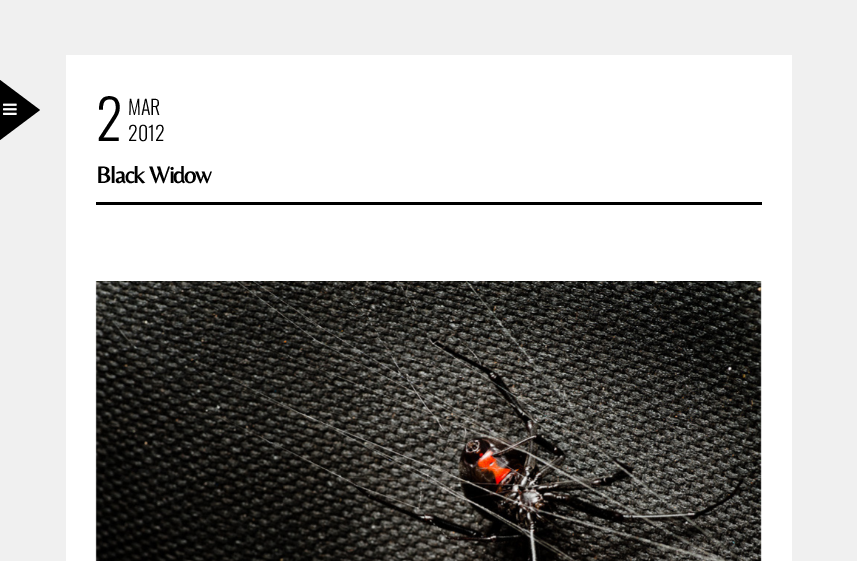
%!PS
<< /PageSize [857 561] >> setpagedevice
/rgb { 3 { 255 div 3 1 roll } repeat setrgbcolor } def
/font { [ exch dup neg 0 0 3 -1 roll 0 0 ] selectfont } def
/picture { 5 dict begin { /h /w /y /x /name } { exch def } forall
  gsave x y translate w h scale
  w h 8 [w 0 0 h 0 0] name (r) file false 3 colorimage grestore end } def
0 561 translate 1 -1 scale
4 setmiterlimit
240 240 240 rgb
0 0 857 561 rectfill
0 0 0 rgb
0 140 moveto 0 80 lineto 40 110 lineto closepath fill
(img/1.rgb) 3 103 14 12 picture
255 255 255 rgb
66 55 726 506 rectfill
0 0 0 rgb
96 202 666 3 rectfill
(img/2.rgb) 95 281 667 280 picture
/Oswald-Light 55 font
96 141 moveto (2) show
/Oswald-Light 20 font
128 115 moveto (MAR) show
128 141 moveto (2012) show
/Belleza-Bold 24 font
96 183 moveto -1 0 (Black Widow) ashow
showpage
